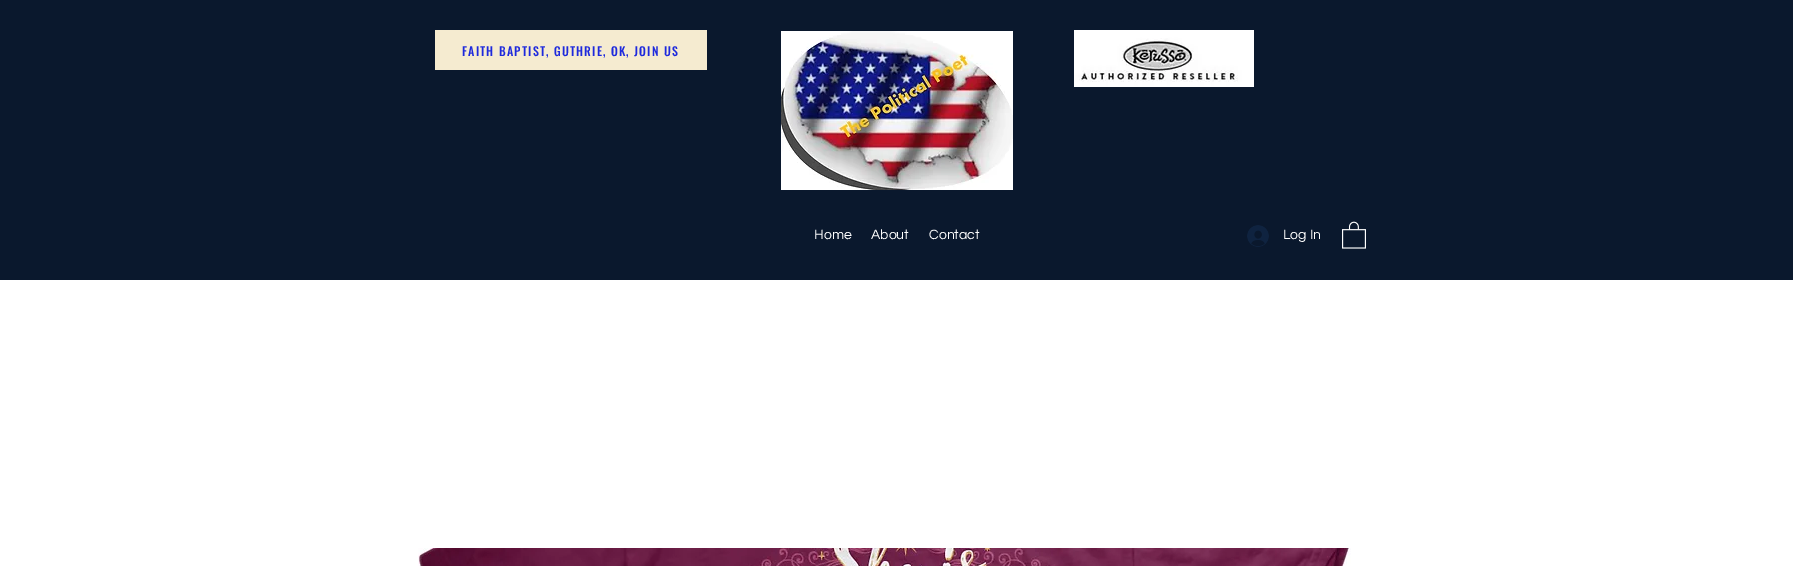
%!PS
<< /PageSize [1793 566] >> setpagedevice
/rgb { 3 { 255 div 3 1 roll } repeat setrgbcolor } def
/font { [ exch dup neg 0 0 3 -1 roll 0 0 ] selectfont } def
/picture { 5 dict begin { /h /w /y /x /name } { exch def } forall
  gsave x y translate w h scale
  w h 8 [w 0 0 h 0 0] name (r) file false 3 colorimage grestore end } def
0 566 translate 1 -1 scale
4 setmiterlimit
255 255 255 rgb
0 0 1793 566 rectfill
10 24 45 rgb
0 0 1793 280 rectfill
245 235 208 rgb
435 30 272 40 rectfill
(img/1.rgb) 781 31 232 159 picture
(img/2.rgb) 1074 30 180 57 picture
(img/3.rgb) 1247 225 22 22 picture
(img/4.rgb) 1342 221 24 28 picture
(img/5.rgb) 418 548 933 18 picture
/Oswald-Medium 12 font
29 41 221 rgb
462 56 moveto 1.2 0 (FAITH BAPTIST, GUTHRIE, OK, JOIN US) ashow
/Questrial-Regular 14 font
255 255 255 rgb
[
  [(Home) 814 239]
  [(About) 871 239]
  [(Contact) 929 239]
  [(Log In) 1283 239]
] { aload pop moveto show } forall
showpage
